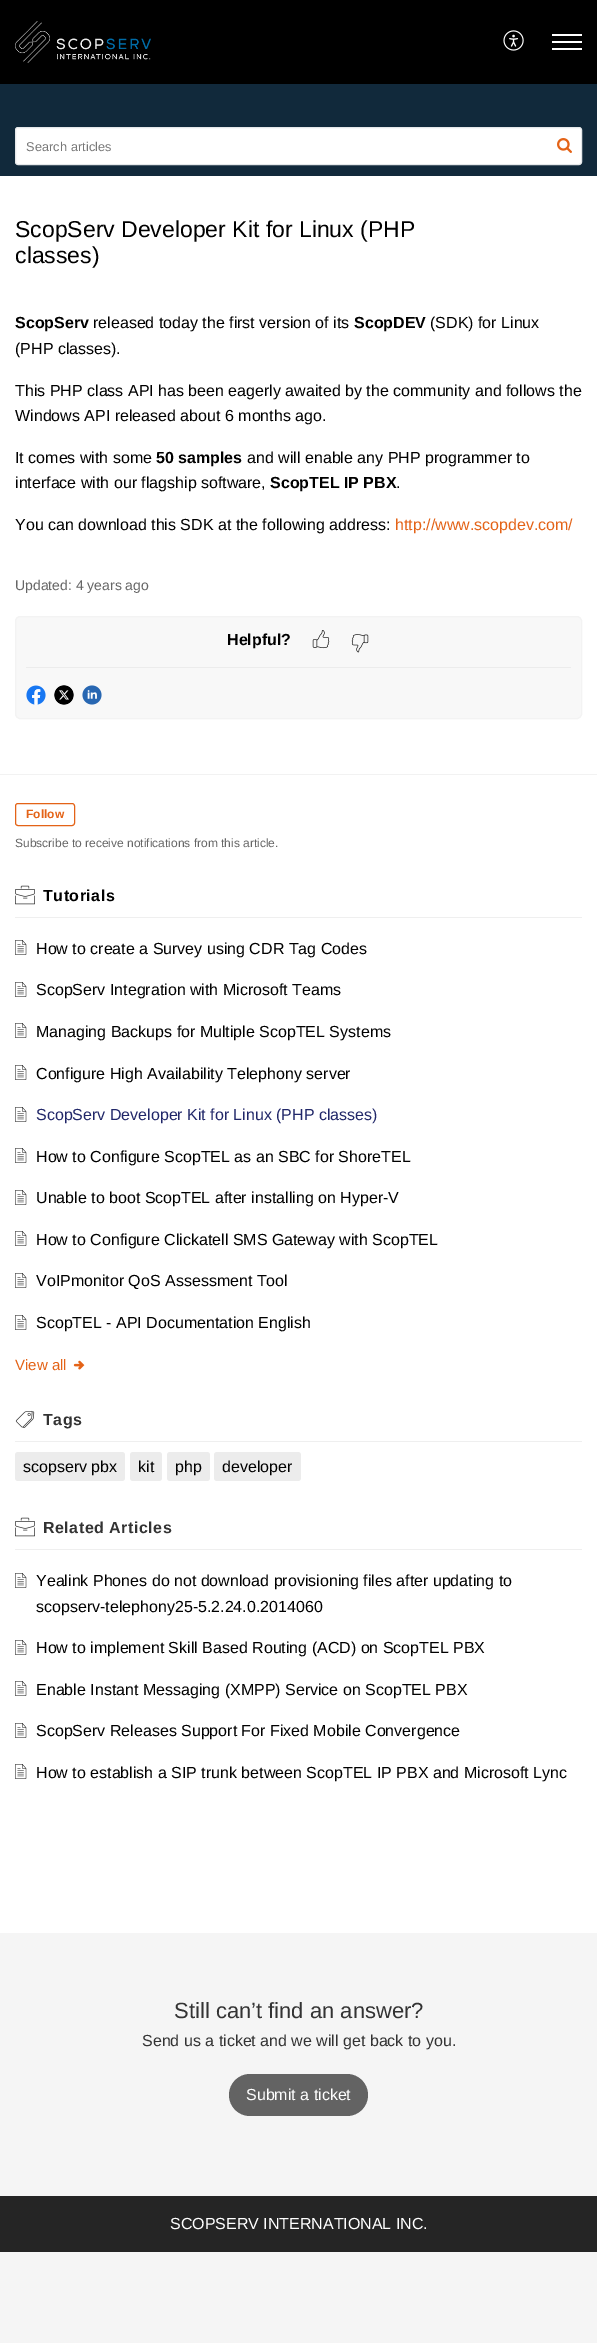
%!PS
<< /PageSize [597 2343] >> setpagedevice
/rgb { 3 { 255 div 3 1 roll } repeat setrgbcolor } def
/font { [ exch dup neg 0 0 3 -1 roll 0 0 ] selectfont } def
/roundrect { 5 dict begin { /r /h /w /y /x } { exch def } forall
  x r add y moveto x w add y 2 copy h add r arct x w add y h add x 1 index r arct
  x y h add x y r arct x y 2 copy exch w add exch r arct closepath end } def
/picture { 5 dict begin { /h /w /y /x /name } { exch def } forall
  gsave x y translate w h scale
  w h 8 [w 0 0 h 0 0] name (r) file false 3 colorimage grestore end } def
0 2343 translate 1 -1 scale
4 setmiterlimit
245 245 245 rgb
0 0 597 2343 rectfill
0 0 0 rgb
0 0 597 84 rectfill
(img/1.rgb) 15 21 136 42 picture
(img/2.rgb) 503 30 21 21 picture
[
  [552 41 30 2 255 255 255]
  [552 34 30 2 255 255 255]
  [552 48 30 2 255 255 255]
  [0 84 597 92 17 41 59]
] { aload pop rgb rectfill } forall
255 255 255 rgb
15.5 127.5 566 37 2.5 roundrect gsave fill grestore
229 232 234 rgb
stroke
(img/3.rgb) 557 138 15 15 picture
255 255 255 rgb
0 176 597 1757 rectfill
242 242 242 rgb
0 774 597 1 rectfill
248 248 248 rgb
15.5 616.5 566 102 4.5 roundrect gsave fill grestore
243 243 243 rgb
stroke
236 236 236 rgb
26 667 545 1 rectfill
(img/4.rgb) 312 630 18 19 picture
(img/5.rgb) 351 634 18 19 picture
(img/6.rgb) 26 685 20 20 picture
(img/7.rgb) 54 685 20 20 picture
(img/8.rgb) 82 685 20 20 picture
228 99 23 rgb
15.5 803.5 59 22 2.5 roundrect stroke
239 239 239 rgb
15 917 567 1 rectfill
(img/9.rgb) 15 885 20 20 picture
(img/10.rgb) 15 940 12 15 picture
(img/10.rgb) 15 982 12 15 picture
(img/10.rgb) 15 1023 12 15 picture
(img/10.rgb) 15 1065 12 15 picture
(img/10.rgb) 15 1107 12 15 picture
(img/10.rgb) 15 1148 12 15 picture
(img/10.rgb) 15 1190 12 15 picture
(img/10.rgb) 15 1231 12 15 picture
(img/10.rgb) 15 1273 12 15 picture
(img/10.rgb) 15 1315 12 15 picture
(img/11.rgb) 73 1360 12 10 picture
15 1441 567 1 rectfill
(img/12.rgb) 15 1410 20 18 picture
236 236 236 rgb
15 1452 110 29 3 roundrect fill
130 1452 32 29 3 roundrect fill
167 1452 43 29 3 roundrect fill
214 1452 87 29 3 roundrect fill
239 239 239 rgb
15 1549 567 1 rectfill
(img/9.rgb) 15 1517 20 20 picture
(img/10.rgb) 15 1573 12 15 picture
(img/10.rgb) 15 1640 12 15 picture
(img/10.rgb) 15 1681 12 15 picture
(img/10.rgb) 15 1723 12 15 picture
(img/10.rgb) 15 1764 12 15 picture
99 99 99 rgb
229 2074 139 42 21 roundrect fill
37 37 37 rgb
0 2196 597 56 rectfill
/LiberationSans-Regular 12.75 font
119 119 119 rgb
26 151 moveto 0.1 0 (Search articles) ashow
/LiberationSans-Regular 23 font
0 0 0 rgb
15 237 moveto (ScopServ Developer Kit for Linux \(PHP) show
15 263 moveto (classes\)) show
/LiberationSans-Bold 16 font
15 328 moveto (ScopServ) show
/LiberationSans-Regular 16 font
93 328 moveto (released today the first version of its) show
/LiberationSans-Bold 16 font
354 328 moveto (ScopDEV) show
/LiberationSans-Regular 16 font
[
  [(\(SDK\) for Linux) 430 328]
  [(\(PHP classes\).) 15 354]
  [(This PHP class API has been eagerly awaited by the community and follows the) 15 396]
  [(Windows API released about 6 months ago.) 15 421]
  [(It comes with some) 15 463]
] { aload pop moveto show } forall
/LiberationSans-Bold 16 font
156 463 moveto (50 samples) show
/LiberationSans-Regular 16 font
247 463 moveto (and will enable any PHP programmer to) show
15 488 moveto (interface with our flagship software,) show
/LiberationSans-Bold 16 font
270 488 moveto (ScopTEL IP PBX) show
/LiberationSans-Regular 16 font
396 488 moveto (.) show
15 530 moveto (You can download this SDK at the following address:) show
228 99 23 rgb
395 530 moveto (http://www.scopdev.com/) show
/LiberationSans-Regular 14 font
102 102 102 rgb
15 590 moveto (Updated: 4 years ago) show
/LiberationSans-Bold 16 font
0 0 0 rgb
227 645 moveto (Helpful?) show
/LiberationSans-Bold 12 font
228 99 23 rgb
26 818 moveto (Follow) show
/LiberationSans-Regular 12 font
102 102 102 rgb
15 847 moveto (Subscribe to receive notifications from this article.) show
/LiberationSans-Bold 16 font
0 0 0 rgb
43 901 moveto 0.5 0 (Tutorials) ashow
/LiberationSans-Regular 16 font
[
  [(How to create a Survey using CDR Tag Codes) 36 954]
  [(ScopServ Integration with Microsoft Teams) 36 995]
  [(Managing Backups for Multiple ScopTEL Systems) 36 1037]
  [(Configure High Availability Telephony server) 36 1079]
] { aload pop moveto show } forall
33 39 105 rgb
36 1120 moveto (ScopServ Developer Kit for Linux \(PHP classes\)) show
0 0 0 rgb
[
  [(How to Configure ScopTEL as an SBC for ShoreTEL) 36 1162]
  [(Unable to boot ScopTEL after installing on Hyper-V) 36 1203]
  [(How to Configure Clickatell SMS Gateway with ScopTEL) 36 1245]
  [(VoIPmonitor QoS Assessment Tool) 36 1286]
  [(ScopTEL - API Documentation English) 36 1328]
] { aload pop moveto show } forall
/LiberationSans-Regular 15 font
228 99 23 rgb
15 1370 moveto (View all) show
/LiberationSans-Bold 16 font
51 51 51 rgb
43 1425 moveto 0.5 0 (Tags) ashow
/LiberationSans-Regular 16 font
0 0 0 rgb
[
  [(scopserv pbx) 23 1472]
  [(kit) 138 1472]
  [(php) 175 1472]
  [(developer) 222 1472]
] { aload pop moveto show } forall
/LiberationSans-Bold 16 font
51 51 51 rgb
43 1533 moveto 0.5 0 (Related Articles) ashow
/LiberationSans-Regular 16 font
0 0 0 rgb
[
  [(Yealink Phones do not download provisioning files after updating to) 36 1586]
  [(scopserv-telephony25-5.2.24.0.2014060) 36 1612]
  [(How to implement Skill Based Routing \(ACD\) on ScopTEL PBX) 36 1653]
  [(Enable Instant Messaging \(XMPP\) Service on ScopTEL PBX) 36 1695]
  [(ScopServ Releases Support For Fixed Mobile Convergence) 36 1736]
  [(How to establish a SIP trunk between ScopTEL IP PBX and Microsoft Lync) 36 1778]
] { aload pop moveto show } forall
/LiberationSans-Regular 22 font
51 51 51 rgb
174 2018 moveto (Still can’t find an answer?) show
/LiberationSans-Regular 16 font
142 2046 moveto (Send us a ticket and we will get back to you.) show
255 255 255 rgb
246 2100 moveto (Submit a ticket) show
170 2229 moveto (SCOPSERV INTERNATIONAL INC.) show
showpage
